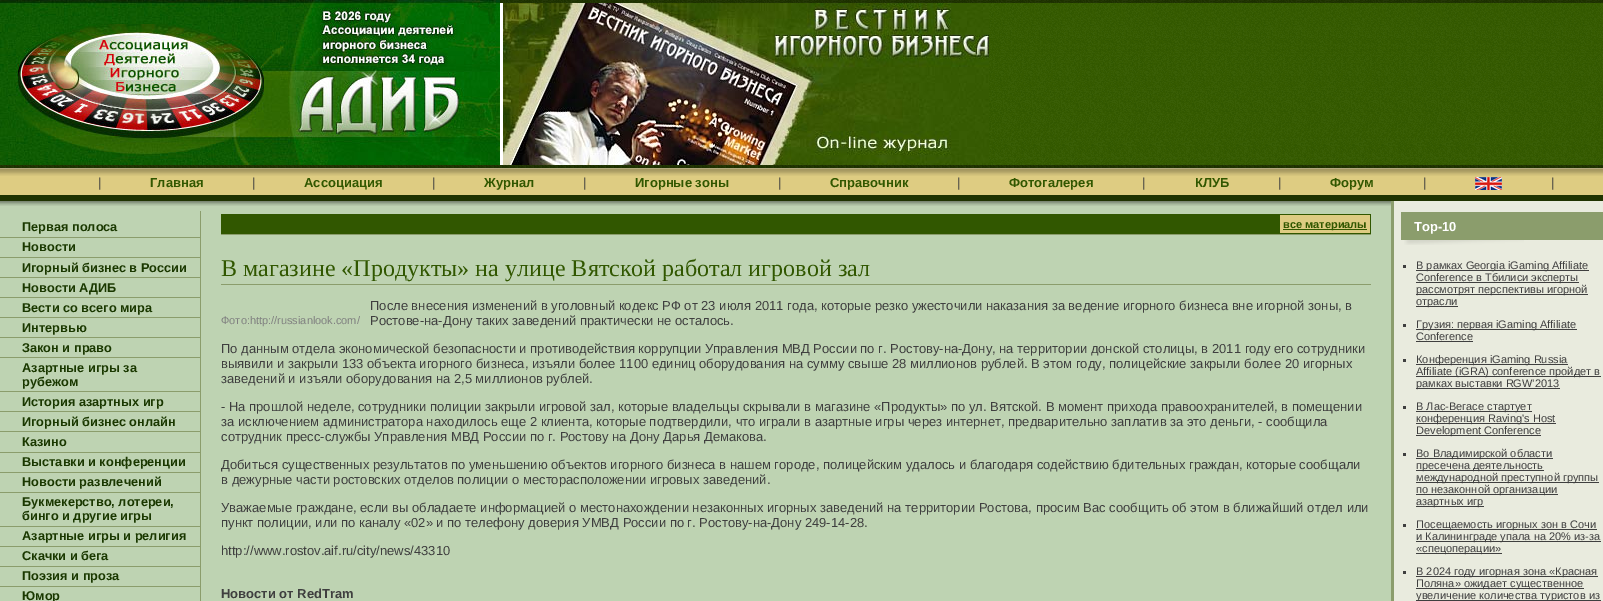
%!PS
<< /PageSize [1603 601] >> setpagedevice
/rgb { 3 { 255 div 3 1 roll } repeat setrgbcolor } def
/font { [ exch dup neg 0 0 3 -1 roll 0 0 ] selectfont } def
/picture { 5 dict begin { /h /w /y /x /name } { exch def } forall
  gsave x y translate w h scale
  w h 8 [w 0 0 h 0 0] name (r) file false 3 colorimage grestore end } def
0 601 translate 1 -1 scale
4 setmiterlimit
190 211 178 rgb
0 0 1603 601 rectfill
(img/1.rgb) 0 0 500 165 picture
(img/2.rgb) 500 0 1103 165 picture
255 255 255 rgb
500 3 3 162 rectfill
(img/3.rgb) 503 3 486 162 picture
222 204 130 rgb
0 176 1603 19 rectfill
(img/4.rgb) 0 165 1603 11 picture
31 51 0 rgb
0 195 1603 6 rectfill
(img/5.rgb) 1475 177 27 13 picture
(img/6.rgb) 0 201 1391 5 picture
[
  [200 211 1 390 139 157 108]
  [0 237 200 1 139 157 108]
  [0 257 200 1 139 157 108]
  [0 277 200 1 139 157 108]
  [0 297 200 1 139 157 108]
  [0 317 200 1 139 157 108]
  [0 337 200 1 139 157 108]
  [0 357 200 1 139 157 108]
  [0 391 200 1 139 157 108]
  [0 411 200 1 139 157 108]
  [0 431 200 1 139 157 108]
  [0 452 200 1 139 157 108]
  [0 472 200 1 139 157 108]
  [0 492 200 1 139 157 108]
  [0 526 200 1 139 157 108]
  [0 546 200 1 139 157 108]
  [0 566 200 1 139 157 108]
  [0 586 200 1 139 157 108]
  [221 214 1150 20 49 87 0]
  [221 234 1150 1 139 157 108]
  [1280 215 90 18 222 204 130]
  [1283 229 84 1 49 87 0]
  [221 284 1150 1 139 157 108]
  [1394 201 209 400 233 235 222]
  [1391 201 3 400 139 157 108]
] { aload pop rgb rectfill } forall
(img/7.rgb) 1404 240 120 5 picture
[
  [1401 212 202 28 139 157 108]
  [1403 265 3 3 63 63 63]
  [1416 270 173 1 63 63 63]
  [1416 282 163 1 63 63 63]
  [1416 294 172 1 63 63 63]
  [1416 306 42 1 63 63 63]
  [1403 324 3 3 63 63 63]
  [1416 329 161 1 63 63 63]
  [1416 341 57 1 63 63 63]
  [1403 359 3 3 63 63 63]
  [1416 364 152 1 63 63 63]
  [1416 376 185 1 63 63 63]
  [1416 388 144 1 63 63 63]
  [1403 406 3 3 63 63 63]
  [1416 411 116 1 63 63 63]
  [1416 423 140 1 63 63 63]
  [1416 435 125 1 63 63 63]
  [1403 453 3 3 63 63 63]
  [1416 458 137 1 63 63 63]
  [1416 470 128 1 63 63 63]
  [1416 482 183 1 63 63 63]
  [1416 494 142 1 63 63 63]
  [1416 506 68 1 63 63 63]
  [1403 524 3 3 63 63 63]
  [1416 529 181 1 63 63 63]
  [1416 541 185 1 63 63 63]
  [1416 553 86 1 63 63 63]
  [1403 571 3 3 63 63 63]
  [1416 576 182 1 63 63 63]
  [1416 588 168 1 63 63 63]
  [1416 600 185 1 63 63 63]
] { aload pop rgb rectfill } forall
/LiberationSans-Regular 13 font
98 187 moveto (|) show
/LiberationSans-Bold 13 font
49 87 0 rgb
150 187 moveto (Главная) show
/LiberationSans-Regular 13 font
63 63 63 rgb
252 187 moveto (|) show
/LiberationSans-Bold 13 font
49 87 0 rgb
304 187 moveto (Ассоциация) show
/LiberationSans-Regular 13 font
63 63 63 rgb
432 187 moveto (|) show
/LiberationSans-Bold 13 font
49 87 0 rgb
484 187 moveto (Журнал) show
/LiberationSans-Regular 13 font
63 63 63 rgb
583 187 moveto (|) show
/LiberationSans-Bold 13 font
49 87 0 rgb
635 187 moveto (Игорные зоны) show
/LiberationSans-Regular 13 font
63 63 63 rgb
778 187 moveto (|) show
/LiberationSans-Bold 13 font
49 87 0 rgb
830 187 moveto (Справочник) show
/LiberationSans-Regular 13 font
63 63 63 rgb
957 187 moveto (|) show
/LiberationSans-Bold 13 font
49 87 0 rgb
1009 187 moveto (Фотогалерея) show
/LiberationSans-Regular 13 font
63 63 63 rgb
1142 187 moveto (|) show
/LiberationSans-Bold 13 font
49 87 0 rgb
1195 187 moveto (КЛУБ) show
/LiberationSans-Regular 13 font
63 63 63 rgb
1278 187 moveto (|) show
/LiberationSans-Bold 13 font
49 87 0 rgb
1330 187 moveto (Форум) show
/LiberationSans-Regular 13 font
63 63 63 rgb
1423 187 moveto (|) show
1551 187 moveto (|) show
/LiberationSans-Bold 12.75 font
26 56 0 rgb
[
  [(Первая полоса) 22 231]
  [(Новости) 22 251]
  [(Игорный бизнес в России) 22 272]
  [(Новости АДИБ) 22 292]
  [(Вести со всего мира) 22 312]
  [(Интервью) 22 332]
  [(Закон и право) 22 352]
  [(Азартные игры за) 22 372]
  [(рубежом) 22 386]
  [(История азартных игр) 22 406]
  [(Игорный бизнес онлайн) 22 426]
  [(Казино) 22 446]
  [(Выставки и конференции) 22 466]
  [(Новости развлечений) 22 486]
  [(Букмекерство, лотереи,) 22 506]
  [(бинго и другие игры) 22 520]
  [(Азартные игры и религия) 22 540]
  [(Скачки и бега) 22 560]
  [(Поэзия и проза) 22 580]
  [(Юмор) 22 600]
] { aload pop moveto show } forall
/LiberationSans-Bold 11 font
49 87 0 rgb
1283 228 moveto (все материалы) show
/LiberationSerif-Regular 24.05 font
221 276 moveto (В магазине «Продукты» на улице Вятской работал игровой зал) show
/LiberationSans-Regular 11 font
128 128 128 rgb
221 324 moveto (Фото:http://russianlook.com/) show
/LiberationSans-Regular 13 font
63 63 63 rgb
[
  [(После внесения изменений в уголовный кодекс РФ от 23 июля 2011 года, которые резко ужесточили наказания за ведение игорного бизнеса вне игорной зоны, в) 370 310]
  [(Ростове-на-Дону таких заведений практически не осталось.) 370 325]
  [(По данным отдела экономической безопасности и противодействия коррупции Управления МВД России по г. Ростову-на-Дону, на территории донской столицы, в 2011 году его сотрудники) 221 353]
  [(выявили и закрыли 133 объекта игорного бизнеса, изъяли более 1100 единиц оборудования на сумму свыше 28 миллионов рублей. В этом году, полицейские закрыли более 20 игорных) 221 368]
  [(заведений и изъяли оборудования на 2,5 миллионов рублей.) 221 383]
  [(- На прошлой неделе, сотрудники полиции закрыли игровой зал, которые владельцы скрывали в магазине «Продукты» по ул. Вятской. В момент прихода правоохранителей, в помещении) 221 411]
  [(за исключением администратора находилось еще 2 клиента, которые подтвердили, что играли в азартные игры через интернет, предварительно заплатив за это деньги, - сообщила) 221 426]
  [(сотрудник пресс-службы Управления МВД России по г. Ростову на Дону Дарья Демакова.) 221 441]
  [(Добиться существенных результатов по уменьшению объектов игорного бизнеса в нашем городе, полицейским удалось и благодаря содействию бдительных граждан, которые сообщали) 221 469]
  [(в дежурные части ростовских отделов полиции о месторасположении игровых заведений.) 221 484]
  [(Уважаемые граждане, если вы обладаете информацией о местонахождении незаконных игорных заведений на территории Ростова, просим Вас сообщить об этом в ближайший отдел или) 221 512]
  [(пункт полиции, или по каналу «02» и по телефону доверия УМВД России по г. Ростову-на-Дону 249-14-28.) 221 527]
  [(http://www.rostov.aif.ru/city/news/43310) 221 555]
] { aload pop moveto show } forall
/LiberationSans-Bold 13 font
221 598 moveto (Новости от RedTram) show
255 255 255 rgb
1414 231 moveto (Top-10) show
/LiberationSans-Regular 11 font
63 63 63 rgb
[
  [(В рамках Georgia iGaming Affiliate) 1416 269]
  [(Conference в Тбилиси эксперты) 1416 281]
  [(рассмотрят перспективы игорной) 1416 293]
  [(отрасли) 1416 305]
  [(Грузия: первая iGaming Affiliate) 1416 328]
  [(Conference) 1416 340]
  [(Конференция iGaming Russia) 1416 363]
  [(Affiliate \(iGRA\) conference пройдет в) 1416 375]
  [(рамках выставки RGW’2013) 1416 387]
  [(В Лас-Вегасе стартует) 1416 410]
  [(конференция Raving's Host) 1416 422]
  [(Development Conference) 1416 434]
  [(Во Владимирской области) 1416 457]
  [(пресечена деятельность) 1416 469]
  [(международной преступной группы) 1416 481]
  [(по незаконной организации) 1416 493]
  [(азартных игр) 1416 505]
  [(Посещаемость игорных зон в Сочи) 1416 528]
  [(и Калининграде упала на 20% из-за) 1416 540]
  [(«спецоперации») 1416 552]
  [(В 2024 году игорная зона «Красная) 1416 575]
  [(Поляна» ожидает существенное) 1416 587]
  [(увеличение количества туристов из) 1416 599]
] { aload pop moveto show } forall
showpage
